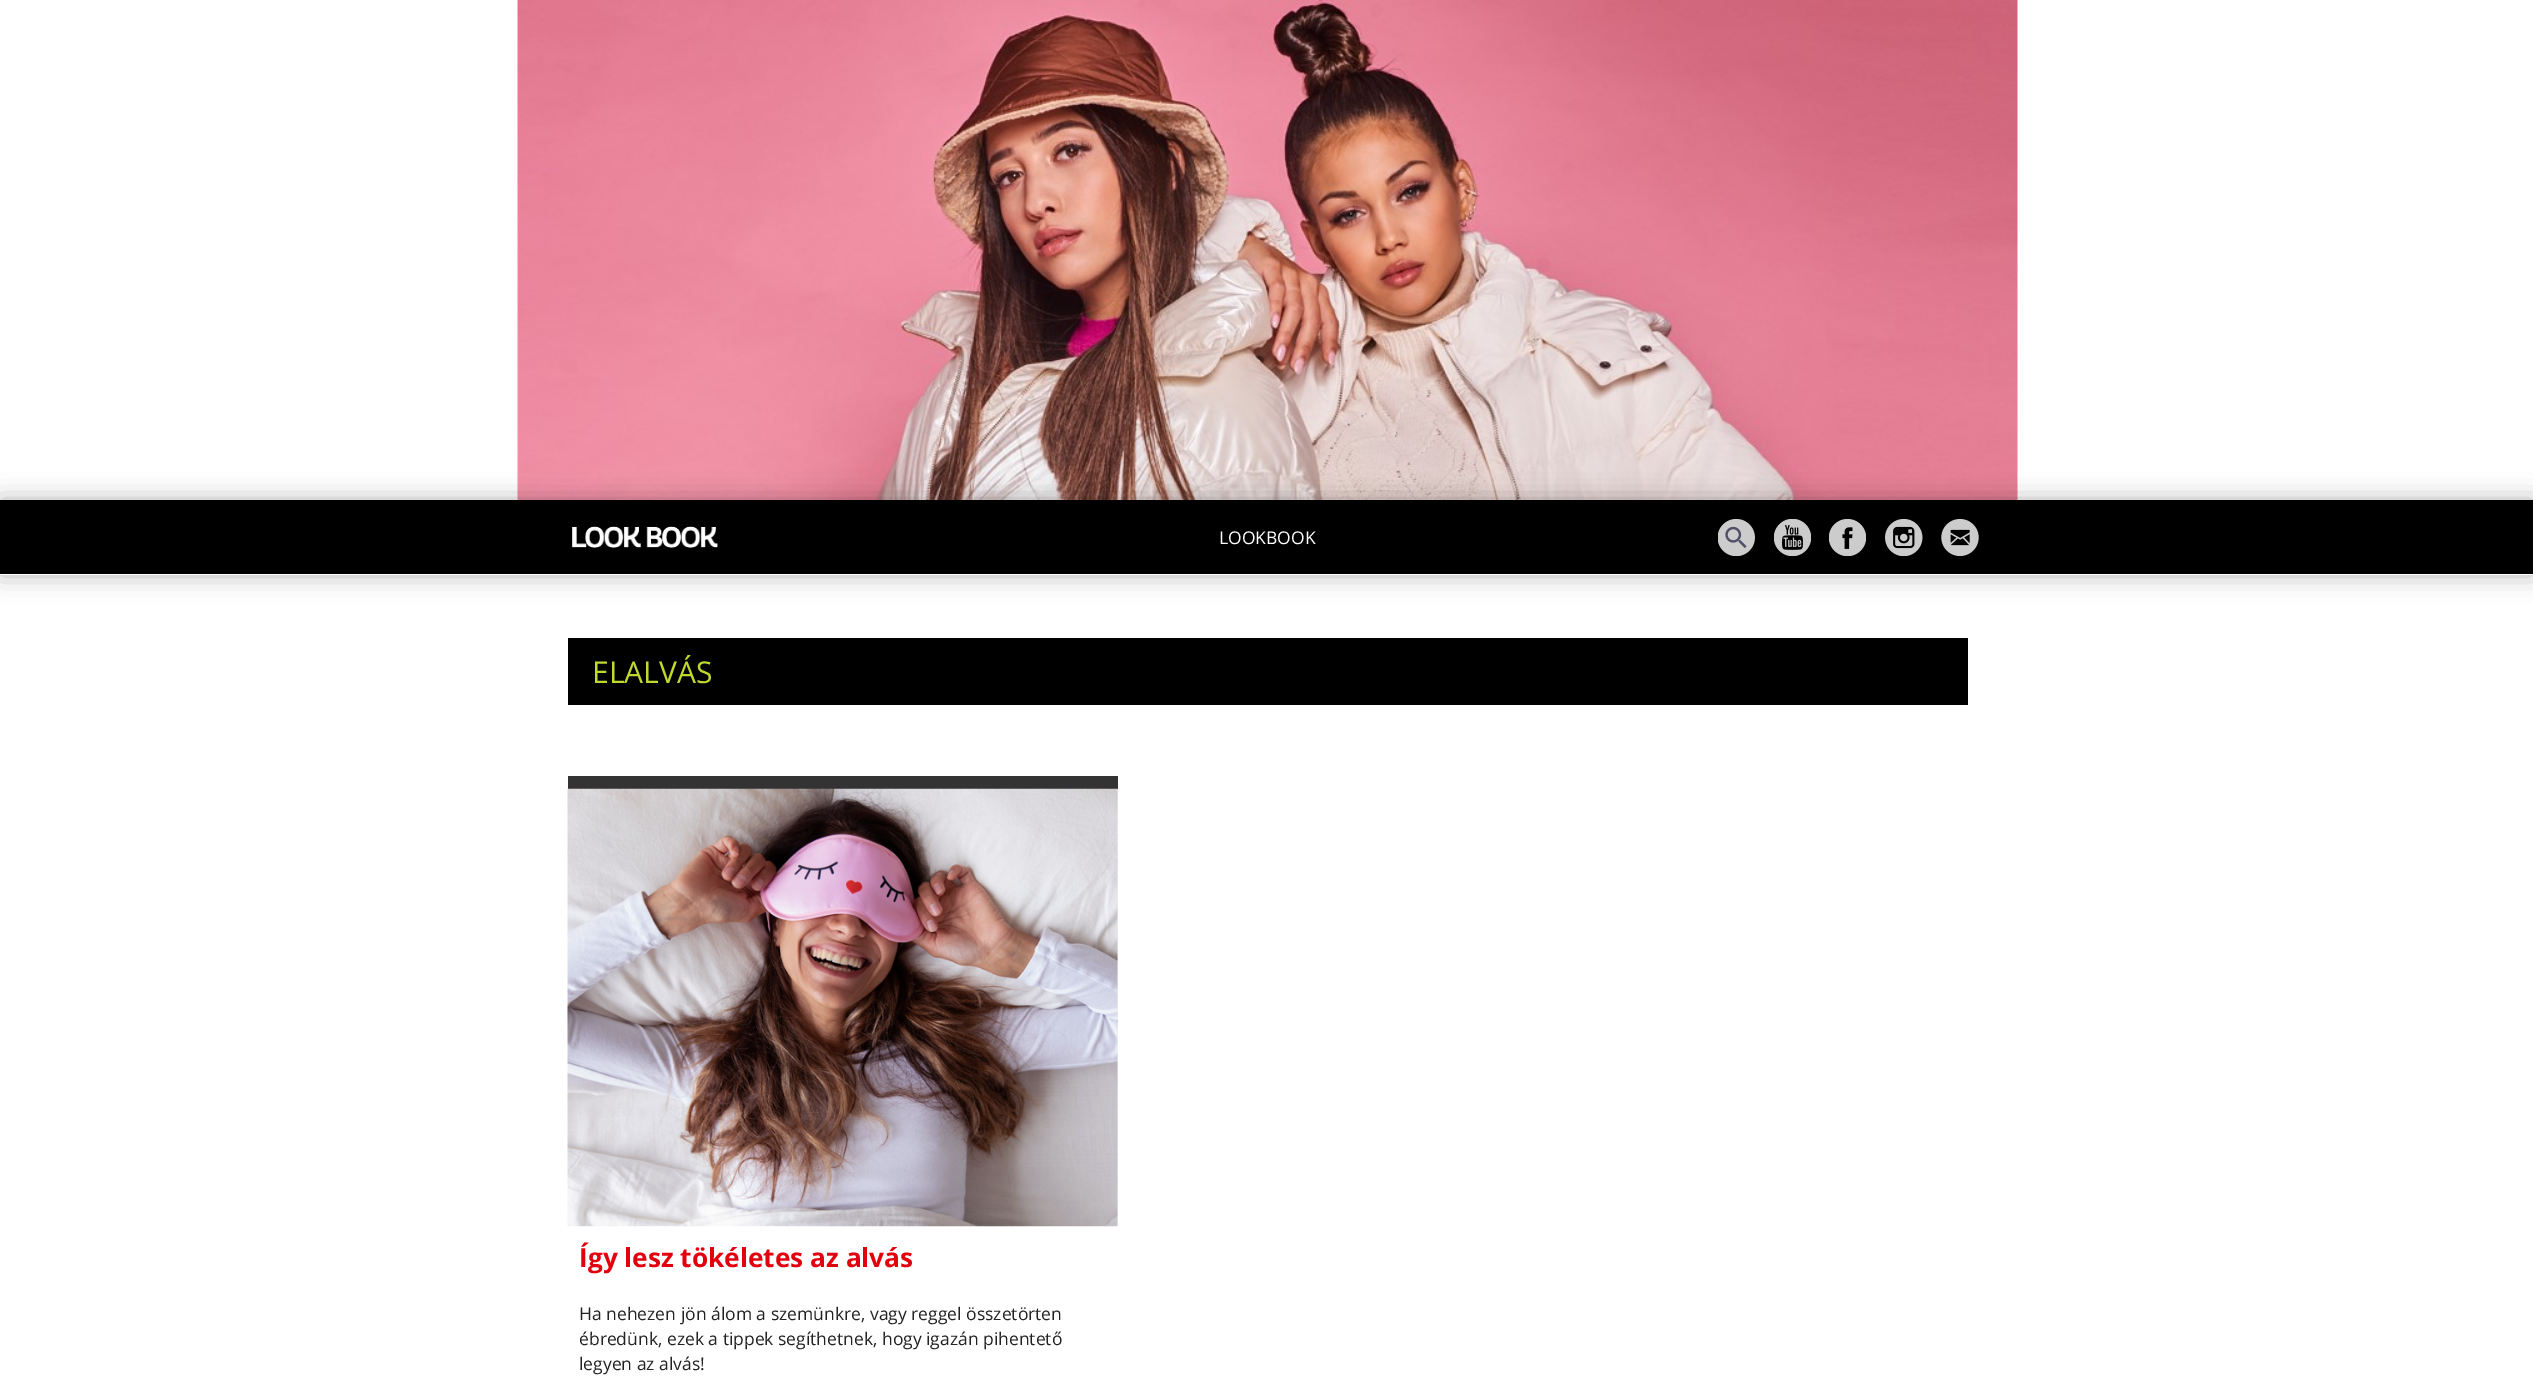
%!PS
<< /PageSize [2533 1385] /PageUsesTransparency true >> setpagedevice
/rgb { 3 { 255 div 3 1 roll } repeat setrgbcolor } def
/font { [ exch dup neg 0 0 3 -1 roll 0 0 ] selectfont } def
/alpha { dup .setfillconstantalpha .setstrokeconstantalpha } def
/roundrect { 5 dict begin { /r /h /w /y /x } { exch def } forall
  x r add y moveto x w add y 2 copy h add r arct x w add y h add x 1 index r arct
  x y h add x y r arct x y 2 copy exch w add exch r arct closepath end } def
/shadow { 12 dict begin { /a /b /q /h /w /y /x } { exch def } forall gsave /was 0 def
  9 -2 -9 { dup b mul 4 div /e exch def 1 sub .425 mul 2.718 exch exp 1 add a .99 .min exch div /now exch def
    1 1 now sub 1 was sub div sub alpha /was now def
    w h .min e 2 mul add 0 gt { x e sub y e sub w e 2 mul add h e 2 mul add
      q e add b .6 mul add w h .min 2 div e add .min 0 .max roundrect fill } if } for grestore end } def
/picture { 5 dict begin { /h /w /y /x /name } { exch def } forall
  gsave x y translate w h scale
  w h 8 [w 0 0 h 0 0] name (r) file false 3 colorimage grestore end } def
0 .pushpdf14devicefilter
0 1385 translate 1 -1 scale
4 setmiterlimit
255 255 255 rgb
0 0 2533 1385 rectfill
(img/1.rgb) 517 0 1501 500 picture
0 0 0 rgb
0 500 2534 75 0 12.5 0.3 shadow
0 500 2533 74 rectfill
255 255 255 rgb
0 574 2533 1 rectfill
(img/2.rgb) 572 526 146 22 picture
(img/3.rgb) 1718 519 37 37 picture
(img/4.rgb) 1774 519 37 37 picture
(img/5.rgb) 1829 519 37 37 picture
(img/6.rgb) 1885 519 38 37 picture
(img/7.rgb) 1941 519 38 37 picture
[
  [568 638 1400 67 0 0 0]
  [568 776 550 13 51 51 51]
  [1117 789 1 437 238 238 238]
] { aload pop rgb rectfill } forall
(img/8.rgb) 567 788 551 439 picture
/OpenSans-Regular 17.5 font
255 255 255 rgb
1219 544 moveto (LOOKBOOK) show
/OpenSans-Regular 30 font
193 216 47 rgb
592 683 moveto (ELALVÁS) show
/OpenSans-Bold 26.25 font
227 0 14 rgb
579 1267 moveto (Így lesz tökéletes az alvás) show
/OpenSans-Regular 17.5 font
34 34 34 rgb
[
  [(Ha nehezen jön álom a szemünkre, vagy reggel összetörten) 579 1320]
  [(ébredünk, ezek a tippek segíthetnek, hogy igazán pihentető) 579 1345]
  [(legyen az alvás!) 579 1370]
] { aload pop moveto show } forall
.poppdf14devicefilter showpage
